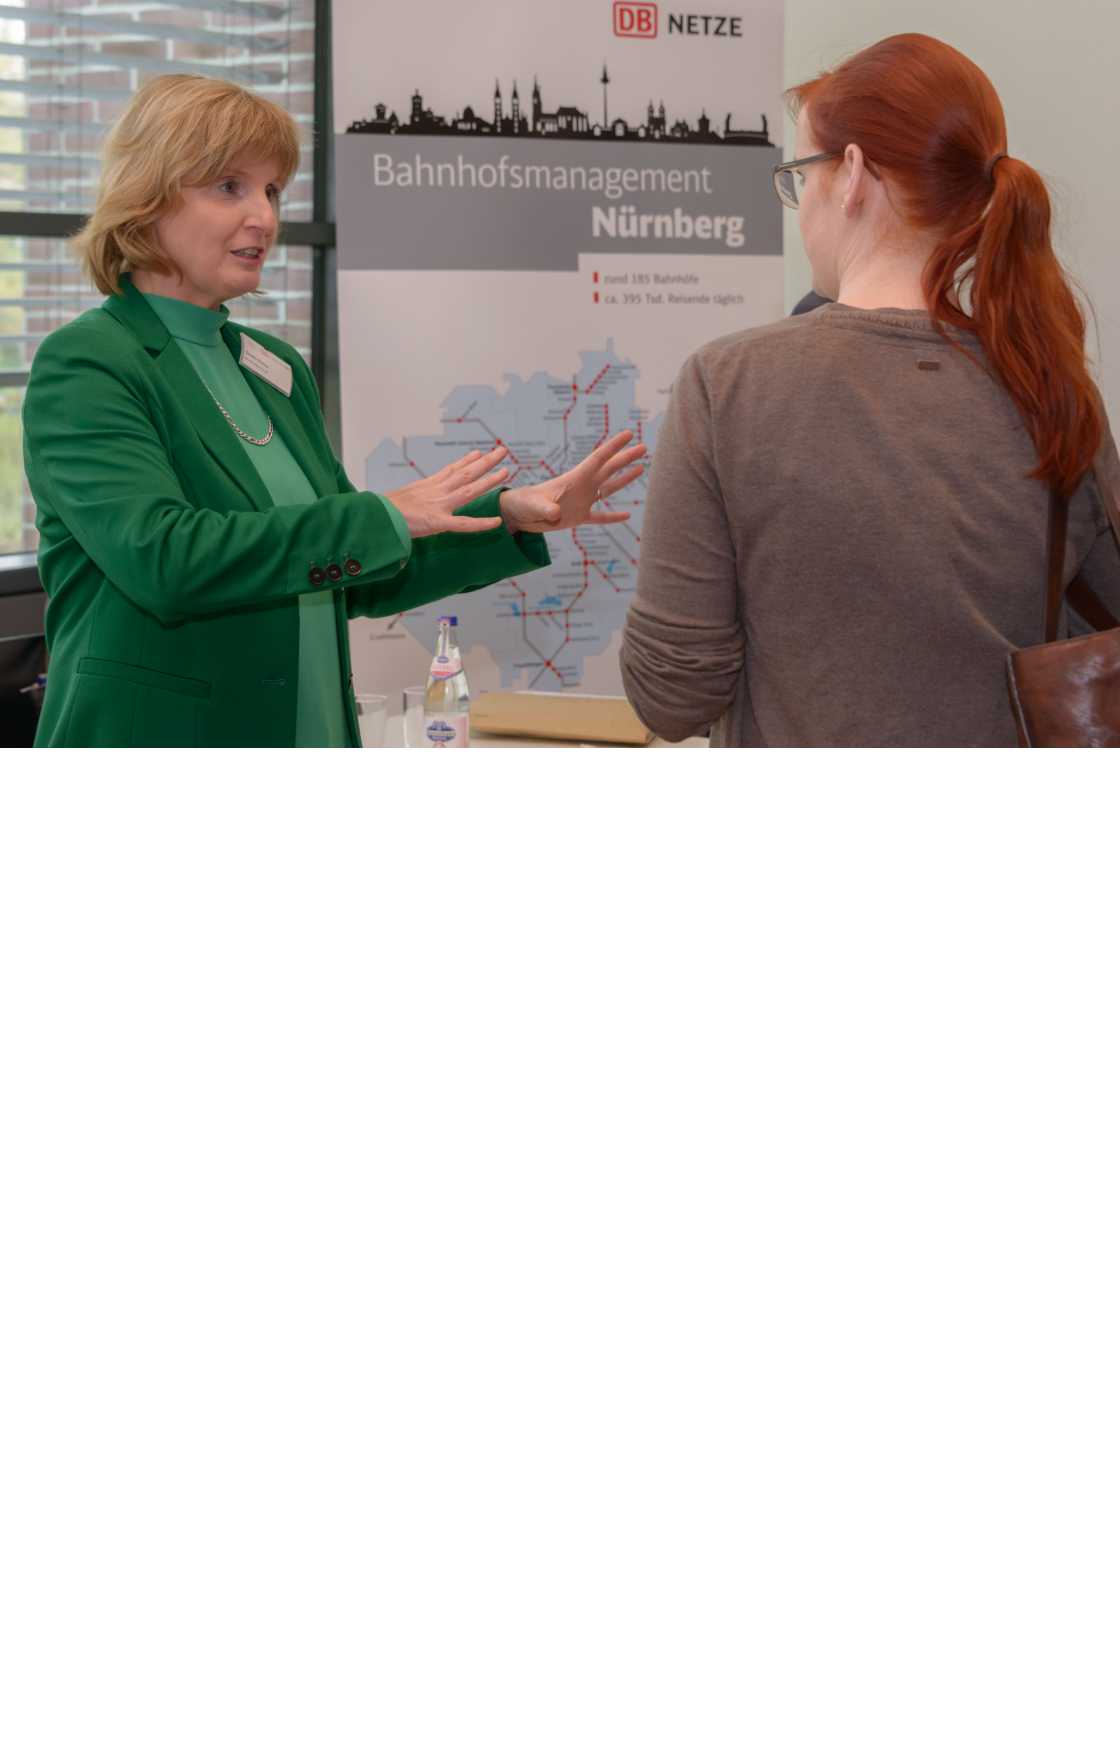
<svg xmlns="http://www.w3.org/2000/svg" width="1120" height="1759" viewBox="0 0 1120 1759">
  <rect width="100%" height="100%" fill="rgb(255,255,255)"/>
  <image x="0" y="0" width="1120" height="748" href="pic1.png"/>
</svg>
